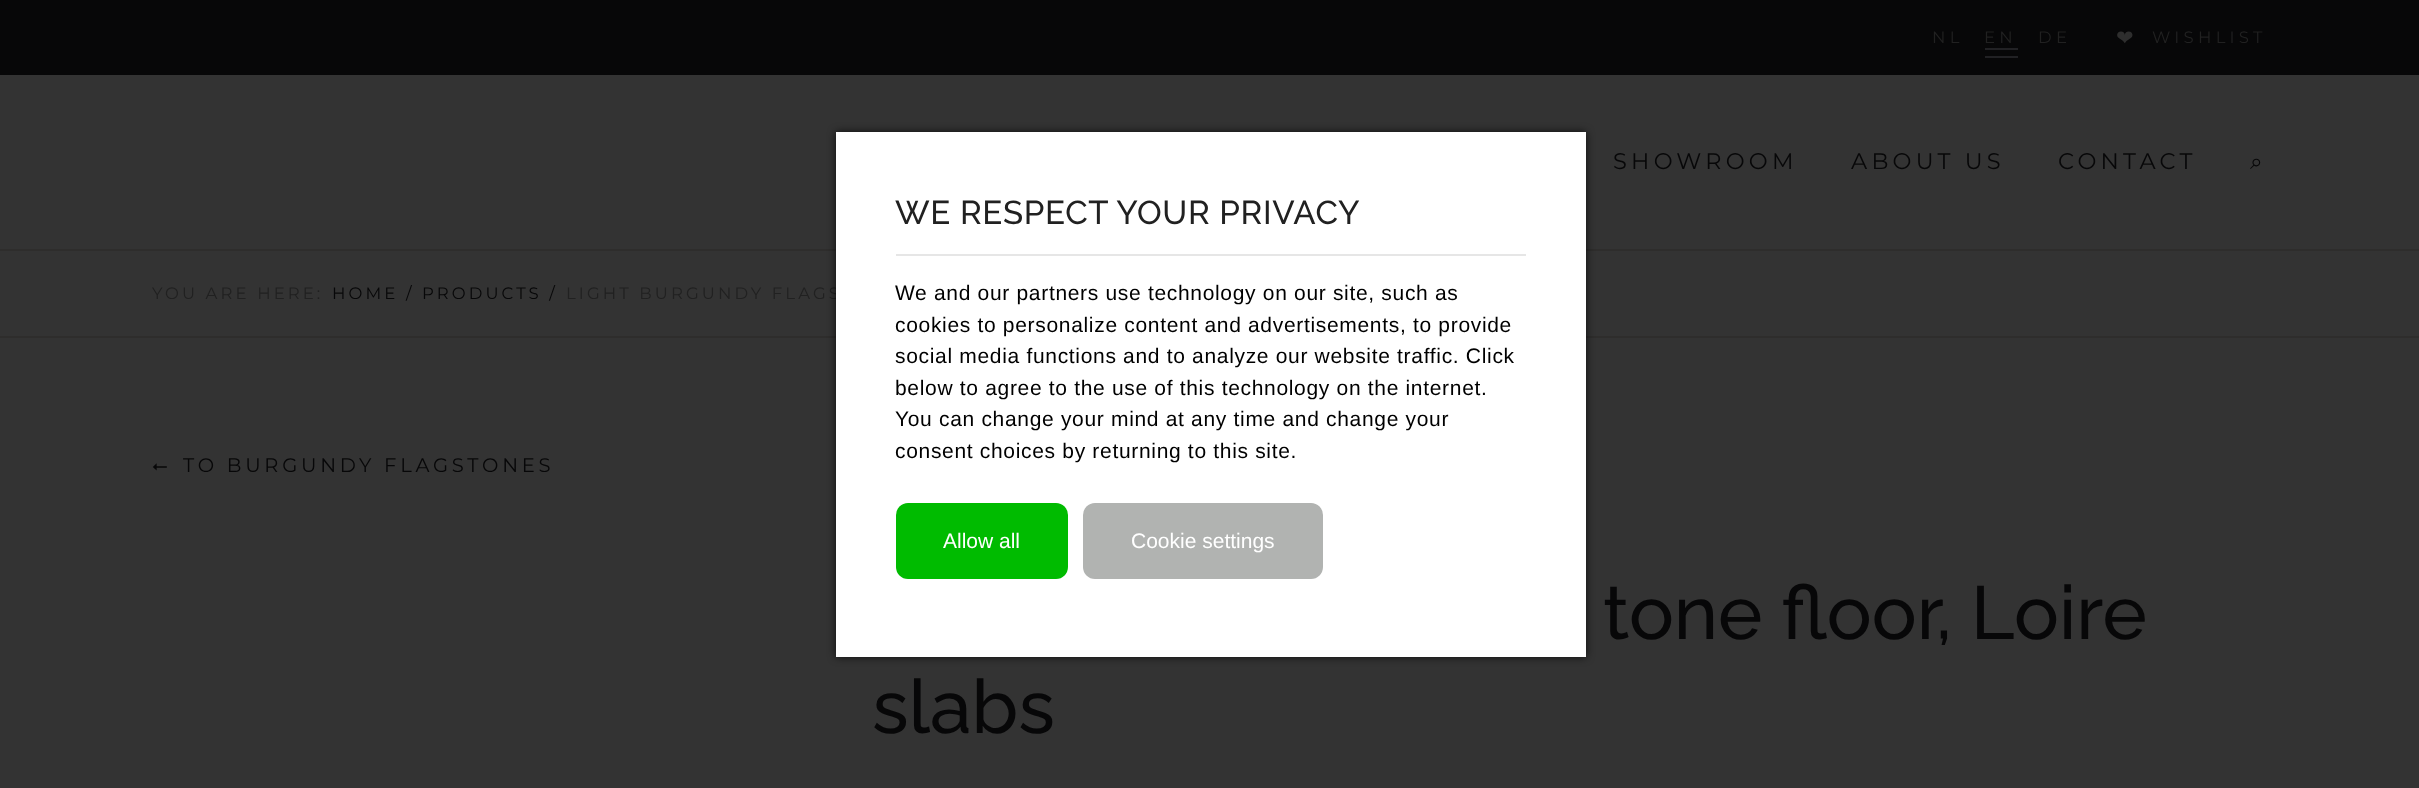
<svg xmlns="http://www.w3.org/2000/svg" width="2419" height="788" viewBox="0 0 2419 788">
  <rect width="100%" height="100%" fill="rgb(51,51,51)"/>
  <rect x="0" y="249" width="2419" height="2" fill="rgb(46,45,44)"/>
  <rect x="0" y="0" width="2419" height="75" fill="rgb(7,7,8)"/>
  <g font-family="Montserrat" font-size="16.5" letter-spacing="4.25" fill="rgb(33,33,33)">
    <text x="1932" y="43">NL</text>
    <text x="1984" y="43">EN</text>
  </g>
  <rect x="1985" y="56" width="33" height="2" fill="rgb(33,33,36)"/>
  <rect x="1985" y="48" width="33" height="2" fill="rgb(33,33,36)"/>
  <text x="2038" y="43" font-family="Montserrat" font-size="16.5" letter-spacing="4.25" fill="rgb(33,33,33)">DE</text>
  <text x="2116" y="45" font-family="DejaVu Sans" font-size="21" letter-spacing="4.25" fill="rgb(46,46,46)">❤</text>
  <text x="2152" y="43" font-family="Montserrat" font-size="16.5" letter-spacing="4.25" fill="rgb(33,33,33)">WISHLIST</text>
  <g font-family="Montserrat" font-size="22.5" letter-spacing="4.25" fill="rgb(7,7,8)">
    <text x="1613" y="169">SHOWROOM</text>
    <text x="1851" y="169">ABOUT US</text>
    <text x="2058" y="169">CONTACT</text>
  </g>
  <text x="2250" y="169" font-family="FreeSerif" font-size="22.5" letter-spacing="4.25" fill="rgb(7,7,8)">⌕</text>
  <rect x="0" y="336" width="2419" height="2" fill="rgb(46,45,44)"/>
  <text x="152" y="299" font-family="Montserrat" font-size="16.5" letter-spacing="3.1" fill="rgb(33,33,33)">YOU ARE HERE:</text>
  <text x="332" y="299" font-family="Montserrat" font-size="16.5" letter-spacing="3.1" fill="rgb(7,7,8)">HOME / PRODUCTS /</text>
  <text x="566" y="299" font-family="Montserrat" font-size="16.5" letter-spacing="3.1" fill="rgb(33,33,33)">LIGHT BURGUNDY FLAGS</text>
  <text x="152" y="472" font-family="FreeSans" font-size="19.5" letter-spacing="3.75" fill="rgb(7,7,8)">⭠</text>
  <text x="183" y="472" font-family="Montserrat" font-size="19.5" letter-spacing="3.75" fill="rgb(7,7,8)">TO BURGUNDY FLAGSTONES</text>
  <g font-family="Raleway" font-size="75" font-weight="100" fill="rgb(7,7,8)">
    <text x="1603" y="639">tone floor, Loire</text>
    <text x="872" y="733">slabs</text>
  </g>
  <rect x="836" y="132" width="750" height="525" fill="rgba(0,0,0,0.75)" filter="blur(4px)"/>
  <rect x="836" y="132" width="750" height="525" fill="rgb(255,255,255)"/>
  <text x="895" y="224" font-family="Raleway" font-size="33" font-weight="100" letter-spacing="0.68" fill="rgb(33,33,33)">WE RESPECT YOUR PRIVACY</text>
  <rect x="896" y="254" width="630" height="2" fill="rgb(230,230,230)"/>
  <g font-family="Liberation Sans" font-size="21" letter-spacing="0.68" fill="rgb(0,0,0)">
    <text>
      <tspan x="895" y="300">We and our partners use technology on our site, such as</tspan>
      <tspan x="895" y="332">cookies to personalize content and advertisements, to provide</tspan>
      <tspan x="895" y="363">social media functions and to analyze our website traffic. Click</tspan>
      <tspan x="895" y="395">below to agree to the use of this technology on the internet.</tspan>
      <tspan x="895" y="426">You can change your mind at any time and change your</tspan>
      <tspan x="895" y="458">consent choices by returning to this site.</tspan>
    </text>
  </g>
  <rect x="896" y="503" width="172" height="76" rx="12" fill="rgb(0,187,0)"/>
  <text x="943" y="548" font-family="Liberation Sans" font-size="21" fill="rgb(255,255,255)">Allow all</text>
  <rect x="1083" y="503" width="240" height="76" rx="12" fill="rgb(177,179,177)"/>
  <text x="1131" y="548" font-family="Liberation Sans" font-size="21" fill="rgb(255,255,255)">Cookie settings</text>
</svg>
